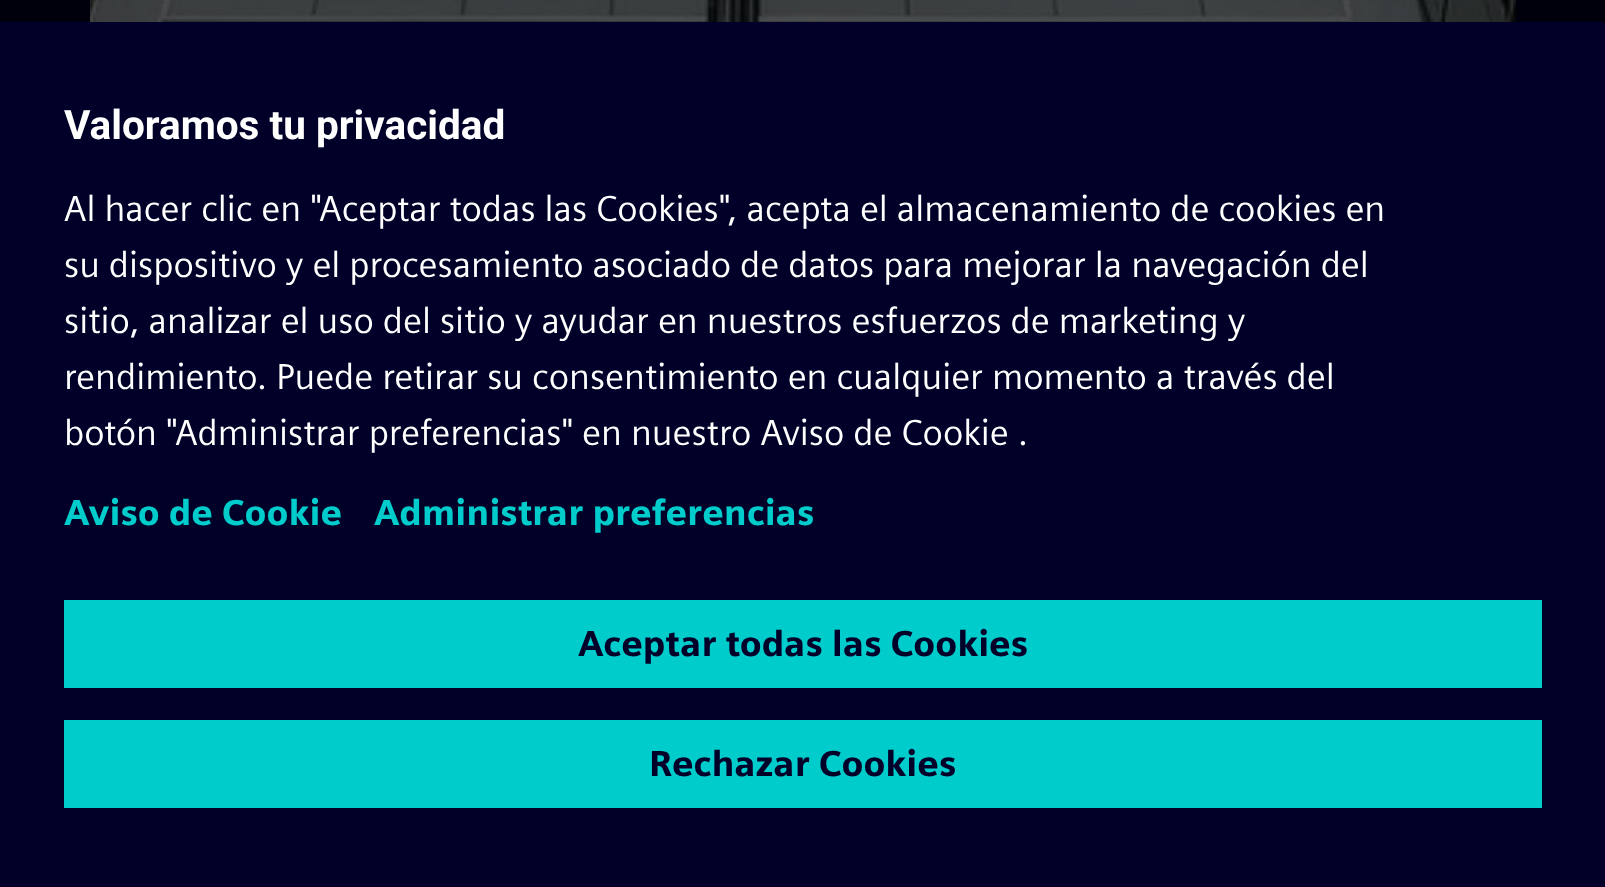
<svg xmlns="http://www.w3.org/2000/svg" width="1605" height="887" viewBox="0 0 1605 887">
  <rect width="100%" height="100%" fill="rgb(0,0,12)"/>
  <image x="90" y="0" width="1426" height="22" href="pic1.png"/>
  <rect x="0" y="22" width="1605" height="865" fill="rgb(0,0,40)"/>
  <text x="64" y="139" font-family="Roboto" font-size="40.5" font-weight="bold" fill="rgb(255,255,255)">Valoramos tu privacidad</text>
  <g font-family="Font" font-size="36" fill="rgb(255,255,255)">
    <text>
      <tspan x="64" y="221">Al hacer clic en "Aceptar todas las Cookies", acepta el almacenamiento de cookies en</tspan>
      <tspan x="64" y="277">su dispositivo y el procesamiento asociado de datos para mejorar la navegación del</tspan>
      <tspan x="64" y="333">sitio, analizar el uso del sitio y ayudar en nuestros esfuerzos de marketing y</tspan>
      <tspan x="64" y="389">rendimiento. Puede retirar su consentimiento en cualquier momento a través del</tspan>
      <tspan x="64" y="445">botón "Administrar preferencias" en nuestro Aviso de Cookie .</tspan>
    </text>
  </g>
  <g font-family="Font" font-size="36" font-weight="bold" fill="rgb(0,204,204)">
    <text x="64" y="525">Aviso de Cookie</text>
    <text x="374" y="525">Administrar preferencias</text>
  </g>
  <rect x="64" y="600" width="1478" height="88" fill="rgb(0,204,204)"/>
  <text x="578" y="656" font-family="Font" font-size="36" font-weight="bold" fill="rgb(0,0,40)">Aceptar todas las Cookies</text>
  <rect x="64" y="720" width="1478" height="88" fill="rgb(0,204,204)"/>
  <text x="649" y="776" font-family="Font" font-size="36" font-weight="bold" fill="rgb(0,0,40)">Rechazar Cookies</text>
</svg>
